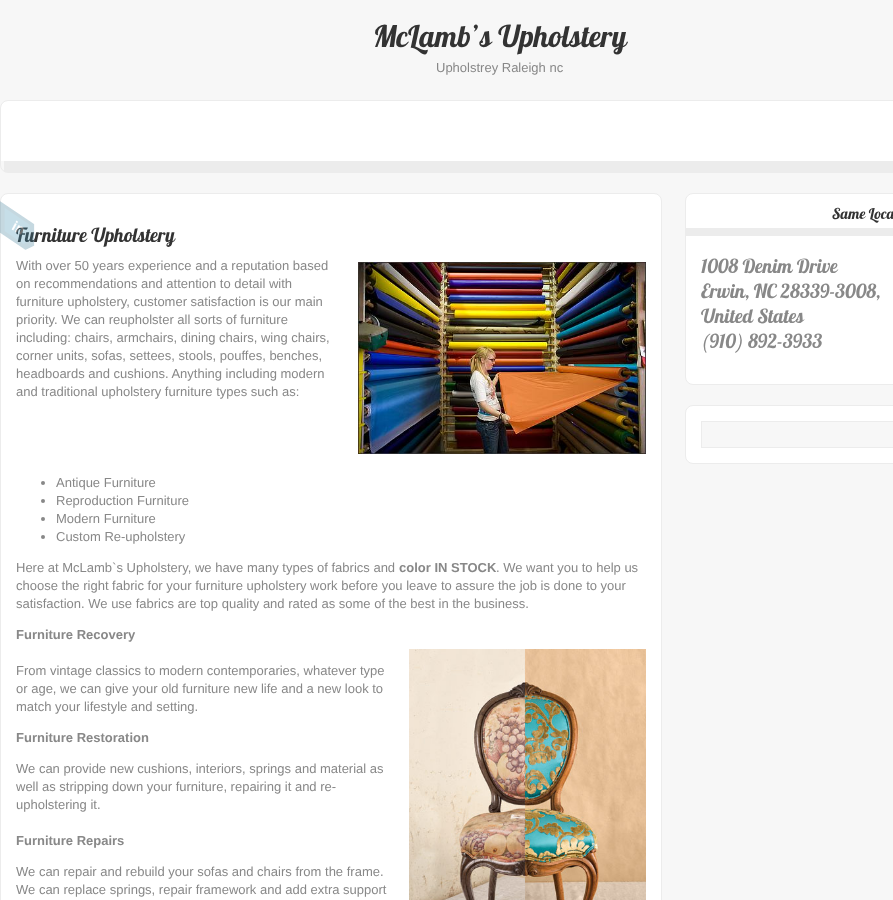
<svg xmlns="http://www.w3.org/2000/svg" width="893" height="900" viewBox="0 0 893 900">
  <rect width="100%" height="100%" fill="rgb(247,247,247)"/>
  <text x="373" y="47" font-family="'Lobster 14'" font-size="30" fill="rgb(51,51,51)">McLamb’s Upholstery</text>
  <text x="436" y="72" font-family="Liberation Sans" font-size="13" fill="rgb(136,136,136)">Upholstrey Raleigh nc</text>
  <path d="M8 101H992C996 101 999 104 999 108V161H1V108C1 104 4 101 8 101Z" fill="rgb(255,255,255)"/>
  <rect x="0.5" y="100.5" width="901" height="72" rx="7.5" fill="none" stroke="rgb(236,236,236)"/>
  <rect x="4" y="161" width="889" height="11" fill="rgb(236,236,236)"/>
  <rect x="0.5" y="193.5" width="661" height="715" rx="7.5" fill="rgb(255,255,255)" stroke="rgb(236,236,236)"/>
  <text x="16" y="242" font-family="'Lobster 14'" font-size="19.5" fill="rgb(51,51,51)">Furniture Upholstery</text>
  <text x="16" y="270" font-family="Liberation Sans" font-size="13" fill="rgb(136,136,136)">With over 50 years experience and a reputation based</text>
  <image x="358" y="262" width="288" height="192" href="pic1.png"/>
  <g font-family="Liberation Sans" font-size="13" fill="rgb(136,136,136)">
    <text>
      <tspan x="16" y="288">on recommendations and attention to detail with</tspan>
      <tspan x="16" y="306">furniture upholstery, customer satisfaction is our main</tspan>
      <tspan x="16" y="324">priority. We can reupholster all sorts of furniture</tspan>
      <tspan x="16" y="342">including: chairs, armchairs, dining chairs, wing chairs,</tspan>
      <tspan x="16" y="360">corner units, sofas, settees, stools, pouffes, benches,</tspan>
      <tspan x="16" y="378">headboards and cushions. Anything including modern</tspan>
      <tspan x="16" y="396">and traditional upholstery furniture types such as:</tspan>
    </text>
  </g>
  <circle cx="43" cy="483" r="2" fill="rgb(136,136,136)"/>
  <text x="56" y="487" font-family="Liberation Sans" font-size="13" fill="rgb(136,136,136)">Antique Furniture</text>
  <circle cx="43" cy="501" r="2" fill="rgb(136,136,136)"/>
  <text x="56" y="505" font-family="Liberation Sans" font-size="13" fill="rgb(136,136,136)">Reproduction Furniture</text>
  <circle cx="43" cy="519" r="2" fill="rgb(136,136,136)"/>
  <text x="56" y="523" font-family="Liberation Sans" font-size="13" fill="rgb(136,136,136)">Modern Furniture</text>
  <circle cx="43" cy="537" r="2" fill="rgb(136,136,136)"/>
  <g font-family="Liberation Sans" font-size="13" fill="rgb(136,136,136)">
    <text x="56" y="541">Custom Re-upholstery</text>
    <text x="16" y="572">Here at McLamb`s Upholstery, we have many types of fabrics and</text>
  </g>
  <text x="399" y="572" font-family="Liberation Sans" font-size="13" font-weight="bold" fill="rgb(136,136,136)">color IN STOCK</text>
  <g font-family="Liberation Sans" font-size="13" fill="rgb(136,136,136)">
    <text x="496" y="572">. We want you to help us</text>
    <text>
      <tspan x="16" y="590">choose the right fabric for your furniture upholstery work before you leave to assure the job is done to your</tspan>
      <tspan x="16" y="608">satisfaction. We use fabrics are top quality and rated as some of the best in the business.</tspan>
    </text>
  </g>
  <text x="16" y="639" font-family="Liberation Sans" font-size="13" font-weight="bold" fill="rgb(136,136,136)">Furniture Recovery</text>
  <text x="16" y="675" font-family="Liberation Sans" font-size="13" fill="rgb(136,136,136)">From vintage classics to modern contemporaries, whatever type</text>
  <image x="409" y="649" width="237" height="251" href="pic2.png"/>
  <g font-family="Liberation Sans" font-size="13" fill="rgb(136,136,136)">
    <text>
      <tspan x="16" y="693">or age, we can give your old furniture new life and a new look to</tspan>
      <tspan x="16" y="711">match your lifestyle and setting.</tspan>
    </text>
  </g>
  <text x="16" y="742" font-family="Liberation Sans" font-size="13" font-weight="bold" fill="rgb(136,136,136)">Furniture Restoration</text>
  <g font-family="Liberation Sans" font-size="13" fill="rgb(136,136,136)">
    <text>
      <tspan x="16" y="773">We can provide new cushions, interiors, springs and material as</tspan>
      <tspan x="16" y="791">well as stripping down your furniture, repairing it and re-</tspan>
      <tspan x="16" y="809">upholstering it.</tspan>
    </text>
  </g>
  <text x="16" y="845" font-family="Liberation Sans" font-size="13" font-weight="bold" fill="rgb(136,136,136)">Furniture Repairs</text>
  <g font-family="Liberation Sans" font-size="13" fill="rgb(136,136,136)">
    <text>
      <tspan x="16" y="876">We can repair and rebuild your sofas and chairs from the frame.</tspan>
      <tspan x="16" y="894">We can replace springs, repair framework and add extra support</tspan>
    </text>
  </g>
  <rect x="685.5" y="193.5" width="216" height="191" rx="7.5" fill="rgb(255,255,255)" stroke="rgb(236,236,236)"/>
  <rect x="686" y="228" width="207" height="8" fill="rgb(236,236,236)"/>
  <text x="832" y="219" font-family="'Lobster 14'" font-size="15" fill="rgb(51,51,51)">Same Loca</text>
  <g font-family="'Lobster 14'" font-size="19.5" fill="rgb(136,136,136)">
    <text>
      <tspan x="701" y="273">1008 Denim Drive</tspan>
      <tspan x="701" y="298">Erwin, NC 28339-3008,</tspan>
      <tspan x="701" y="323">United States</tspan>
      <tspan x="701" y="348">(910) 892-3933</tspan>
    </text>
  </g>
  <rect x="685.5" y="405.5" width="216" height="58" rx="7.5" fill="rgb(255,255,255)" stroke="rgb(236,236,236)"/>
  <rect x="701.5" y="421.5" width="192" height="26" fill="rgb(247,247,247)" stroke="rgb(236,236,236)"/>
  <image x="0" y="201" width="35" height="49" href="pic3.png"/>
</svg>
